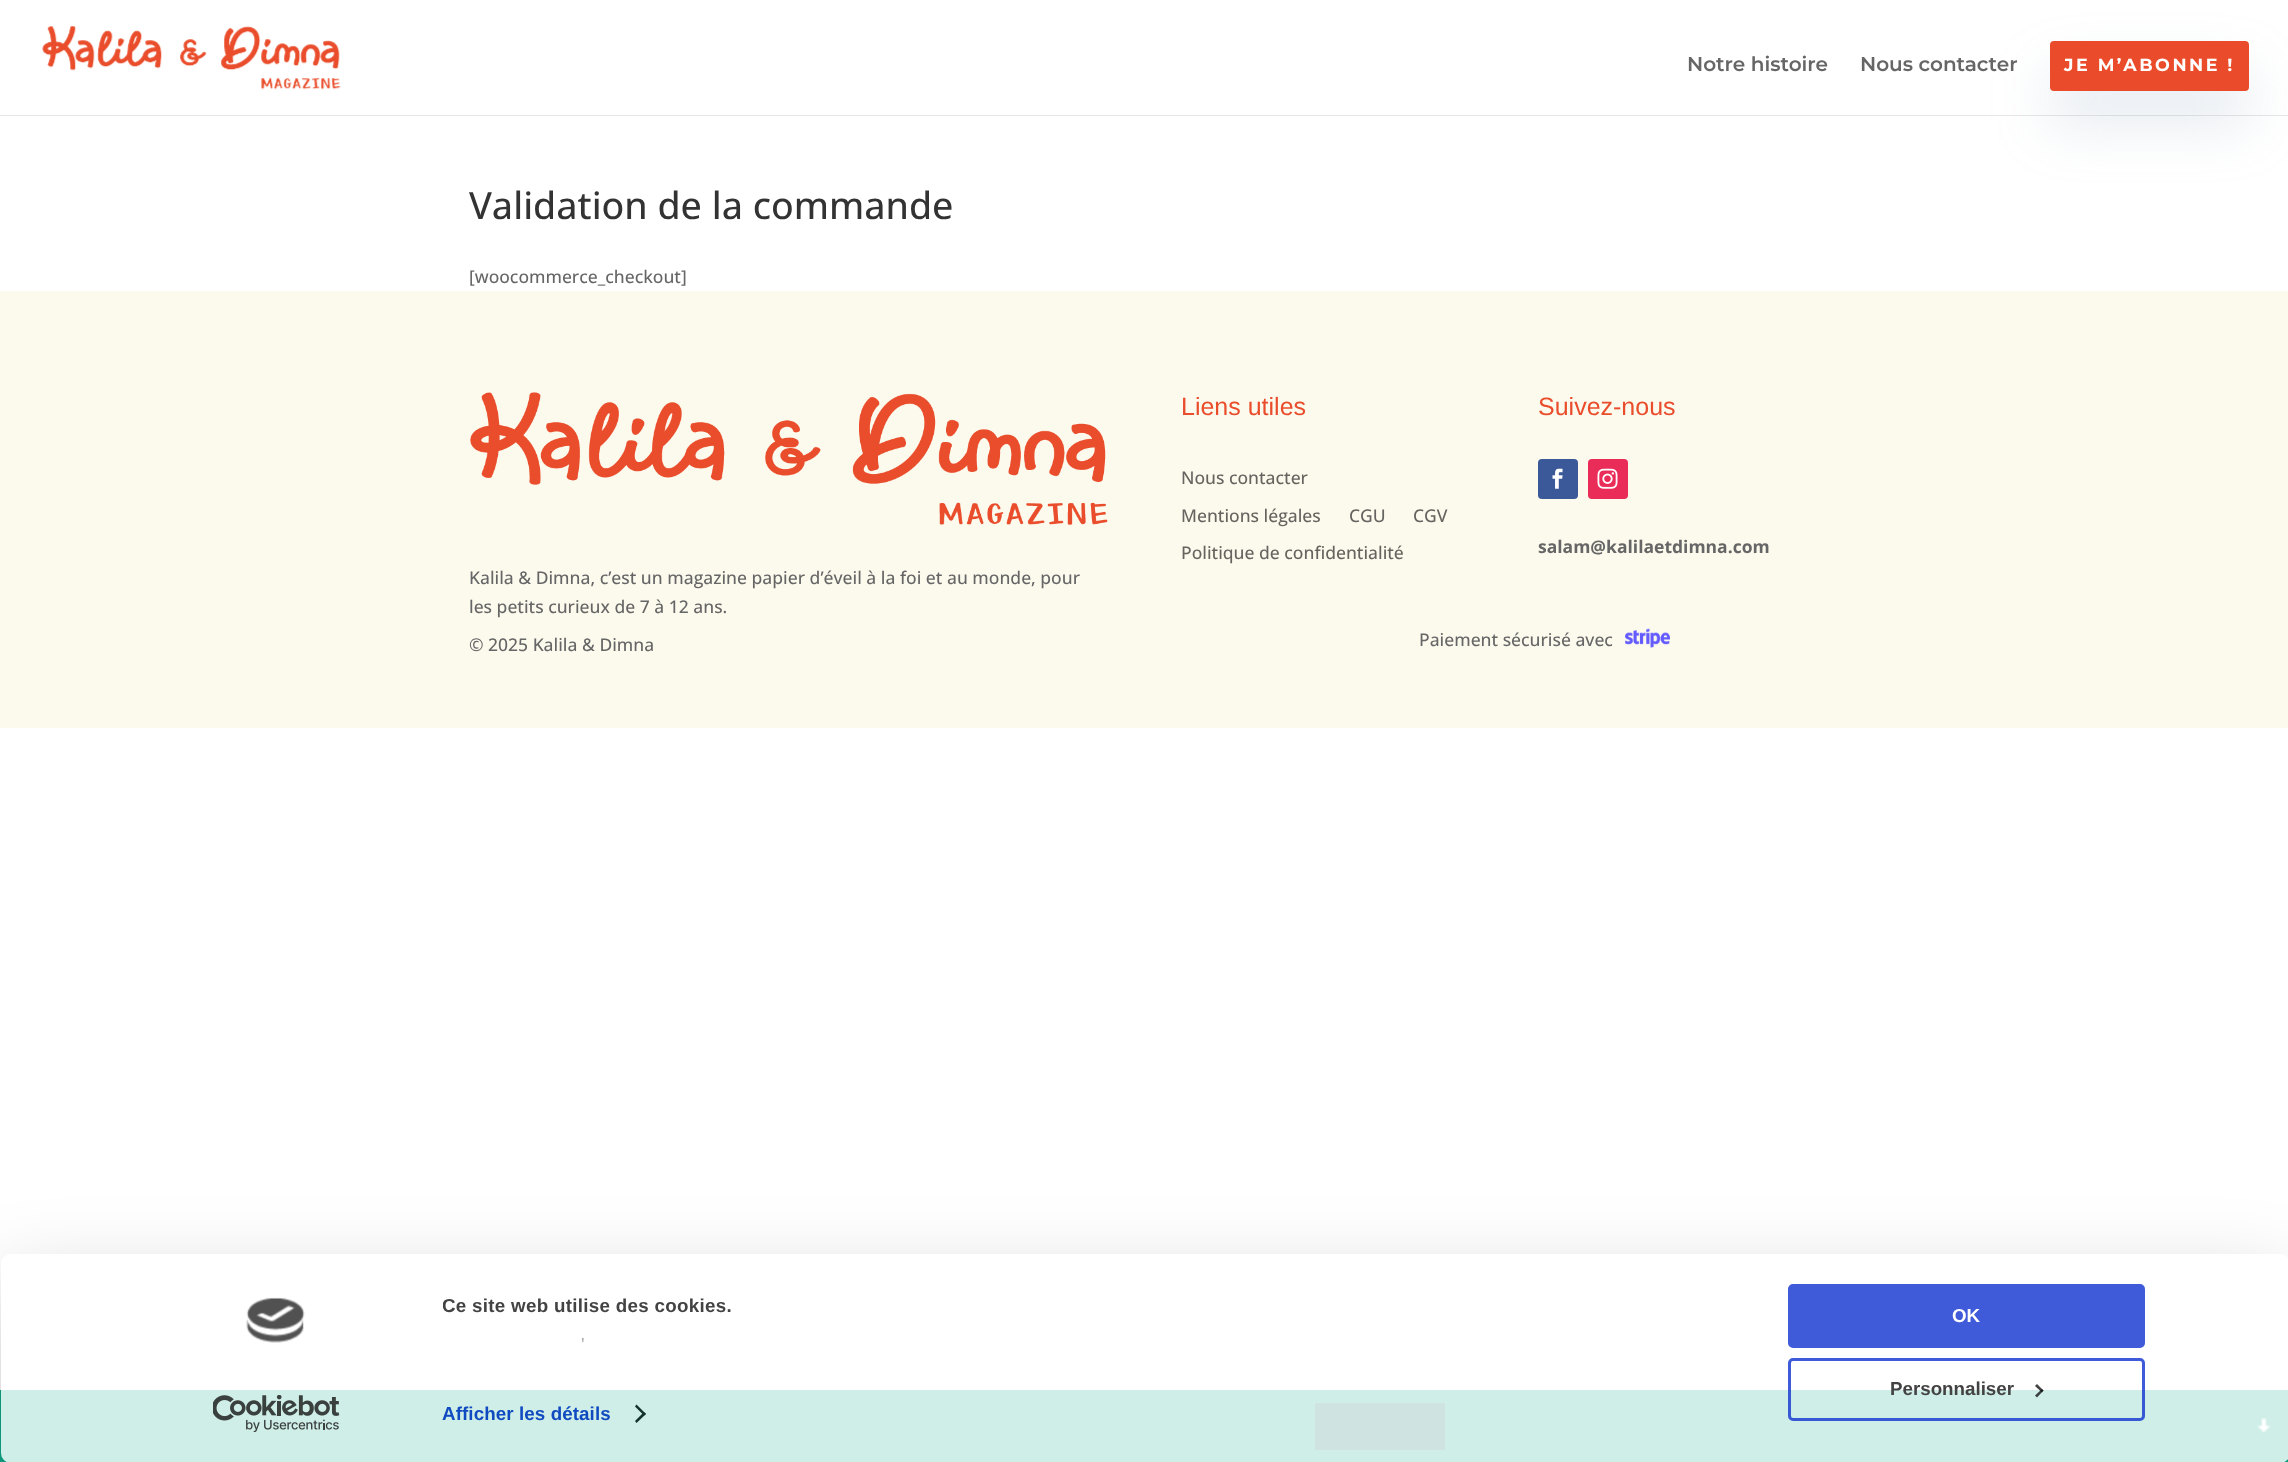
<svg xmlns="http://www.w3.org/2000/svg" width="2288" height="1462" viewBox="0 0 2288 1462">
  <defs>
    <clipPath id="clip1"><path d="M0 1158H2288V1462H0ZM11 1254H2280C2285.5 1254 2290 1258.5 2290 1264V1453C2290 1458.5 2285.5 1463 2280 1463H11C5.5 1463 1 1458.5 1 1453V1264C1 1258.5 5.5 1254 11 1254Z" clip-rule="evenodd"/></clipPath>
    <clipPath id="clip2"><rect x="443" y="1291" width="1310" height="69"/></clipPath>
    <linearGradient id="g1" gradientUnits="userSpaceOnUse" x1="1084" y1="1367" x2="1084" y2="1325"><stop offset="0" stop-color="rgb(255,255,255)"/><stop offset="0.5" stop-color="rgb(255,255,255)" stop-opacity="0.8"/><stop offset="1" stop-color="rgb(255,255,255)" stop-opacity="0"/></linearGradient>
  </defs>
  <rect width="100%" height="100%" fill="rgb(255,255,255)"/>
  <path d="M0 115V116H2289V1V115Z" fill="rgb(230,230,230)"/>
  <image x="42" y="26" width="299" height="64" href="pic1.png"/>
  <g font-family="Montserrat" font-size="20" font-weight="100" fill="rgb(102,102,102)">
    <text x="1687" y="71">Notre histoire</text>
    <text x="1860" y="71">Nous contacter</text>
  </g>
  <rect x="2050" y="73" width="199" height="50" rx="4" fill="rgba(148,166,191,0.25)" filter="blur(28px)"/>
  <rect x="2052.5" y="43.5" width="194" height="45" rx="1.5" fill="rgb(234,76,43)" stroke="rgb(234,76,43)" stroke-width="5"/>
  <text x="2064" y="71" font-family="Montserrat" font-size="17.5" font-weight="bold" letter-spacing="2.5" fill="rgb(255,255,255)">JE M’ABONNE !</text>
  <text x="469" y="219" font-family="Open Sans" font-size="37.5" font-weight="500" fill="rgb(51,51,51)">Validation de la commande</text>
  <text x="469" y="283" font-family="Open Sans" font-size="17.5" font-weight="500" fill="rgb(102,102,102)">[woocommerce_checkout]</text>
  <rect x="0" y="291" width="2288" height="437" fill="rgb(252,249,237)"/>
  <text x="1181" y="415" font-family="Liberation Sans" font-size="25" fill="rgb(233,77,43)">Liens utiles</text>
  <g font-family="Open Sans" font-size="17.5" font-weight="500" fill="rgb(101,100,95)">
    <text x="1181" y="484">Nous contacter</text>
    <text x="1181" y="522">Mentions légales</text>
    <text x="1349" y="522">CGU</text>
    <text x="1413" y="522">CGV</text>
    <text x="1181" y="559">Politique de confidentialité</text>
  </g>
  <text x="1538" y="415" font-family="Liberation Sans" font-size="25" fill="rgb(233,77,43)">Suivez-nous</text>
  <rect x="1538" y="459" width="40" height="40" rx="4" fill="rgb(59,89,152)"/>
  <image x="1552" y="468" width="11" height="21" href="pic2.png"/>
  <rect x="1588" y="459" width="40" height="40" rx="4" fill="rgb(234,44,89)"/>
  <image x="1597" y="468" width="21" height="21" href="pic3.png"/>
  <text x="1538" y="553" font-family="Open Sans" font-size="17.5" font-weight="bold" fill="rgb(102,102,102)">salam@kalilaetdimna.com</text>
  <image x="470" y="392" width="638" height="133" href="pic4.png"/>
  <g font-family="Open Sans" font-size="17.5" font-weight="500" fill="rgb(102,102,102)">
    <text>
      <tspan x="469" y="584">Kalila &amp; Dimna, c’est un magazine papier d’éveil à la foi et au monde, pour</tspan>
      <tspan x="469" y="613">les petits curieux de 7 à 12 ans.</tspan>
    </text>
    <text x="469" y="651">© 2025 Kalila &amp; Dimna</text>
    <text x="1419" y="646">Paiement sécurisé avec</text>
  </g>
  <image x="1625" y="628" width="45" height="20" href="pic5.png"/>
  <rect x="0" y="1390" width="2288" height="72" fill="rgb(18,168,137)"/>
  <rect x="1315" y="1403" width="130" height="47" fill="rgb(16,122,100)"/>
  <image x="2255" y="1414" width="16" height="22" href="pic8.png"/>
  <g clip-path="url(#clip1)">
    <rect x="1" y="1291" width="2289" height="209" rx="10" fill="rgba(0,0,0,0.24)" filter="blur(44px)"/>
  </g>
  <rect x="1" y="1254" width="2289" height="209" rx="10" fill="rgba(255,255,255,0.8)"/>
  <image x="246" y="1297" width="59" height="46" href="pic6.png"/>
  <image x="213" y="1395" width="127" height="38" href="pic7.png"/>
  <g clip-path="url(#clip2)">
    <text x="442" y="1312" font-family="Liberation Sans" font-size="18.75" font-weight="bold" letter-spacing="0.3" fill="rgb(67,67,67)">Ce site web utilise des cookies.</text>
  </g>
  <text x="581" y="1351" font-family="Liberation Sans" font-size="18.75" letter-spacing="1" fill="rgb(67,67,67)">'</text>
  <rect x="582" y="1338" width="2" height="5" fill="url(#g1)"/>
  <text x="442" y="1420" font-family="Liberation Sans" font-size="18.75" font-weight="bold" letter-spacing="0.1" fill="rgb(16,74,193)">Afficher les détails</text>
  <path d="M636.5 1404.5L646 1414L644 1415.5L635 1406.5Z" fill="rgb(20,50,43)"/>
  <path d="M644 1412L646 1414L636.5 1423L635 1421Z" fill="rgb(20,50,43)"/>
  <rect x="1789.5" y="1285.5" width="354" height="61" rx="3.5" fill="rgb(64,91,217)" stroke="rgb(64,91,217)" stroke-width="3"/>
  <text x="1952" y="1322" font-family="Liberation Sans" font-size="18.75" font-weight="bold" fill="rgb(255,255,255)">OK</text>
  <rect x="1789.5" y="1359.5" width="354" height="60" rx="3.5" fill="none" stroke="rgba(16,50,207,0.8)" stroke-width="3"/>
  <text x="1890" y="1395" font-family="Liberation Sans" font-size="18.75" font-weight="bold" fill="rgb(67,67,67)">Personnaliser</text>
  <path d="M2037 1384L2043.5 1390.5L2042 1392.5L2035 1386Z" fill="rgba(20,20,20,0.8)"/>
  <path d="M2042 1389L2043.5 1390.5L2037 1397.5L2035 1395.5Z" fill="rgba(20,20,20,0.8)"/>
</svg>
